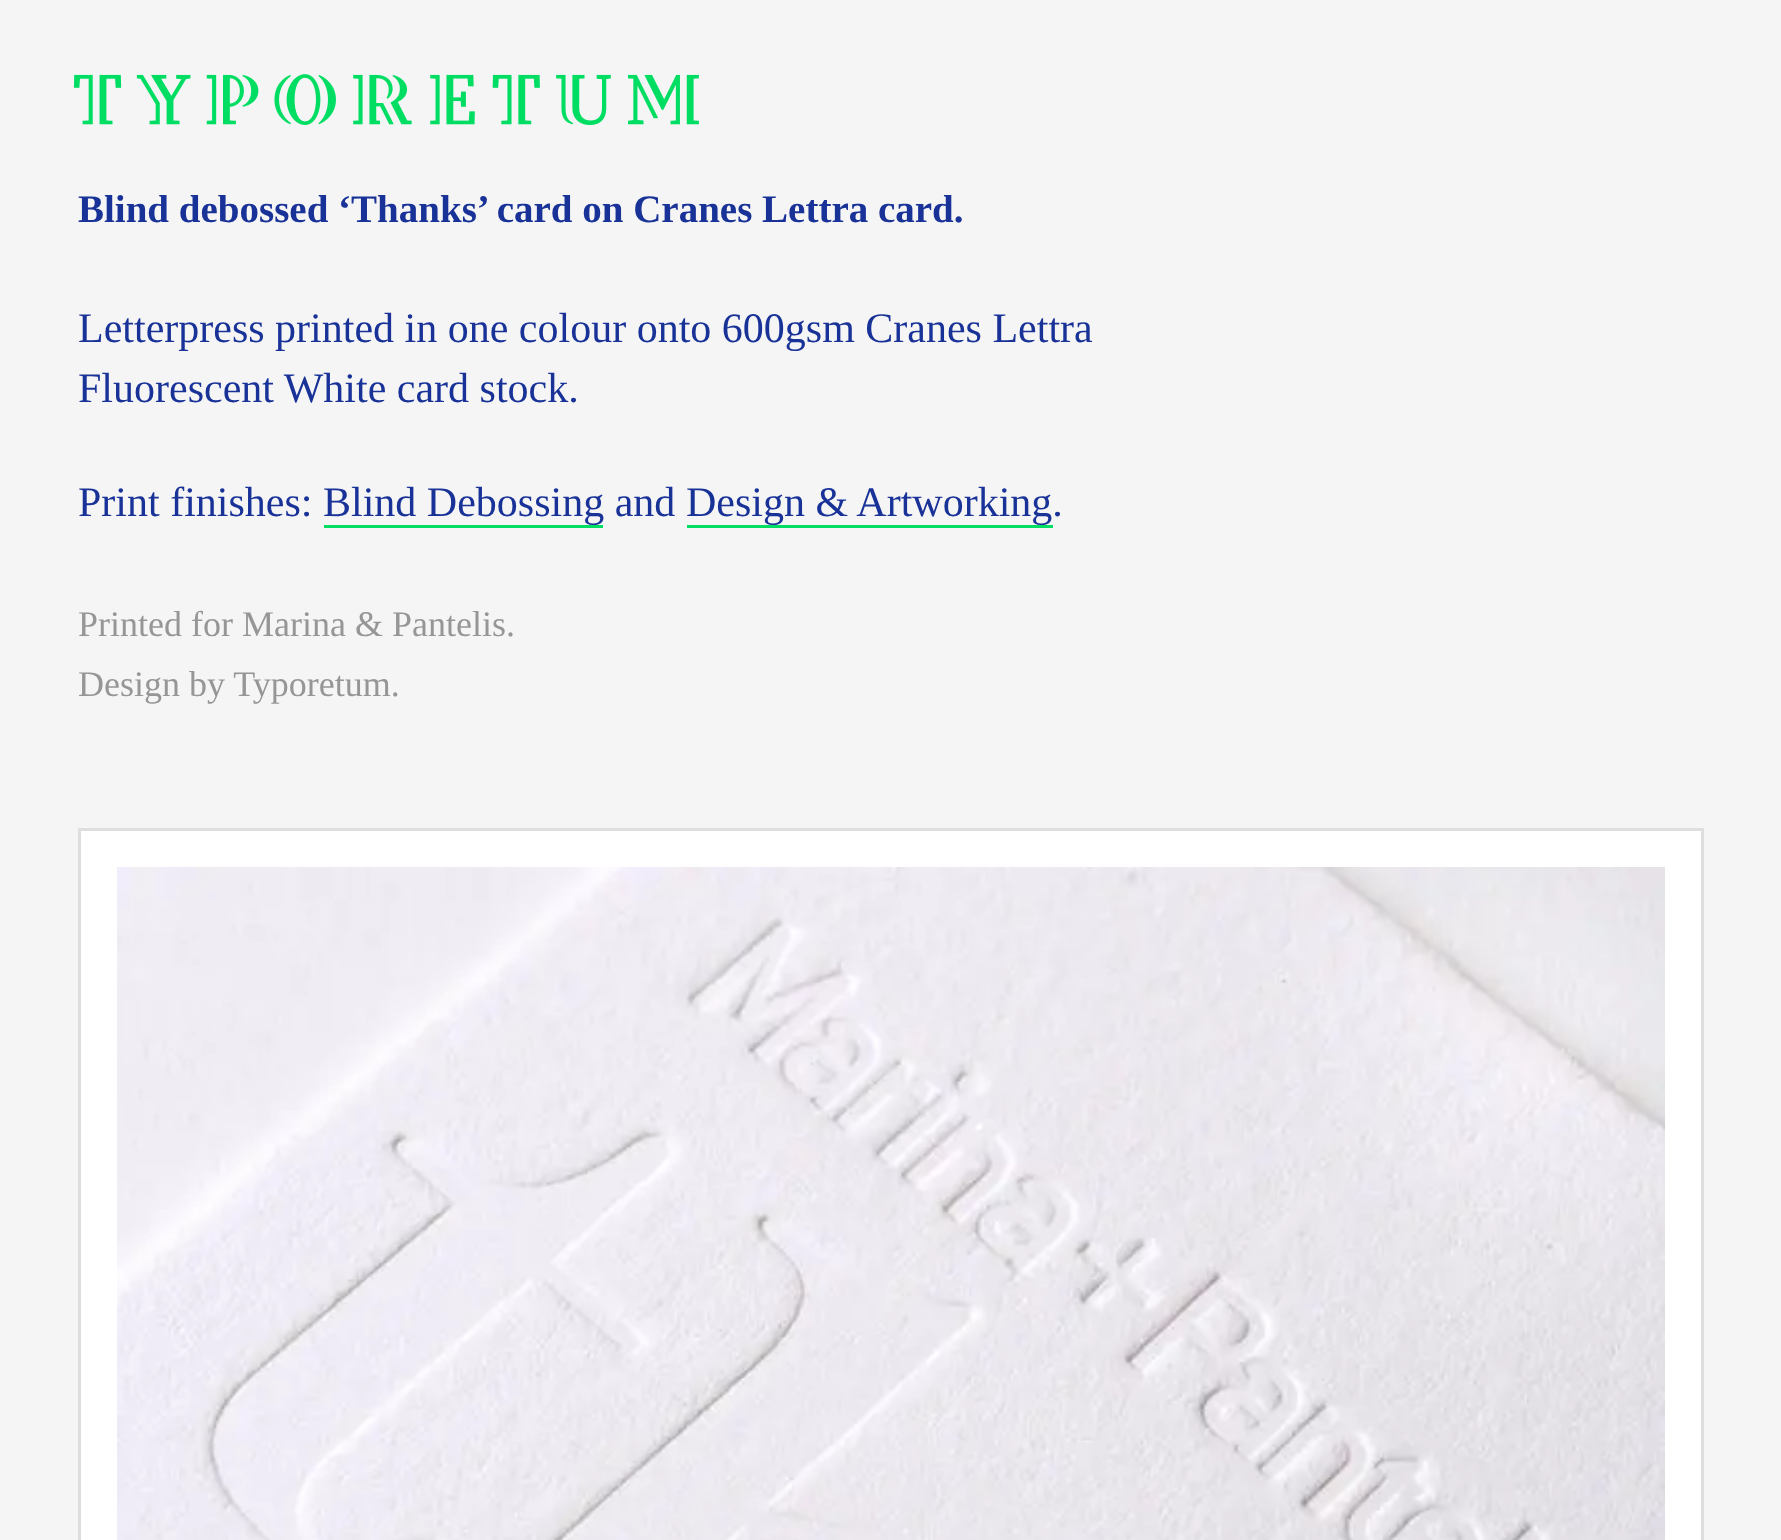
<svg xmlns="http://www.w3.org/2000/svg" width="1781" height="1540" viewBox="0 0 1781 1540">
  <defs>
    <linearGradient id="g1" gradientUnits="userSpaceOnUse" x1="891" y1="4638" x2="891" y2="0"><stop offset="0.06" stop-color="rgb(217,248,217)"/><stop offset="0.32" stop-color="rgb(245,245,245)"/></linearGradient>
  </defs>
  <rect width="100%" height="100%" fill="rgb(255,255,255)"/>
  <rect x="0" y="0" width="1781" height="1540" fill="url(#g1)"/>
  <image x="73" y="74" width="626" height="51" href="pic1.png"/>
  <text x="78" y="222" font-family="Liberation Serif" font-size="39" font-weight="bold" fill="rgb(24,50,152)">Blind debossed ‘Thanks’ card on Cranes Lettra card.</text>
  <g font-family="Liberation Serif" font-size="42" fill="rgb(24,50,152)">
    <text>
      <tspan x="78" y="342">Letterpress printed in one colour onto 600gsm Cranes Lettra</tspan>
      <tspan x="78" y="402">Fluorescent White card stock.</tspan>
    </text>
    <text x="78" y="516">Print finishes:</text>
  </g>
  <rect x="324" y="525" width="279" height="3" fill="rgb(0,221,99)"/>
  <text x="323" y="516" font-family="Liberation Serif" font-size="42" fill="rgb(24,50,152)">Blind Debossing and</text>
  <rect x="687" y="525" width="366" height="3" fill="rgb(0,221,99)"/>
  <text x="686" y="516" font-family="Liberation Serif" font-size="42" fill="rgb(24,50,152)">Design &amp; Artworking.</text>
  <g font-family="Liberation Serif" font-size="36" fill="rgb(150,150,150)">
    <text>
      <tspan x="78" y="636">Printed for Marina &amp; Pantelis.</tspan>
      <tspan x="78" y="696">Design by Typoretum.</tspan>
    </text>
  </g>
  <rect x="79.5" y="829.5" width="1623" height="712" fill="rgb(255,255,255)" stroke="rgb(222,222,222)" stroke-width="3"/>
  <image x="117" y="867" width="1548" height="673" href="pic2.png"/>
</svg>
